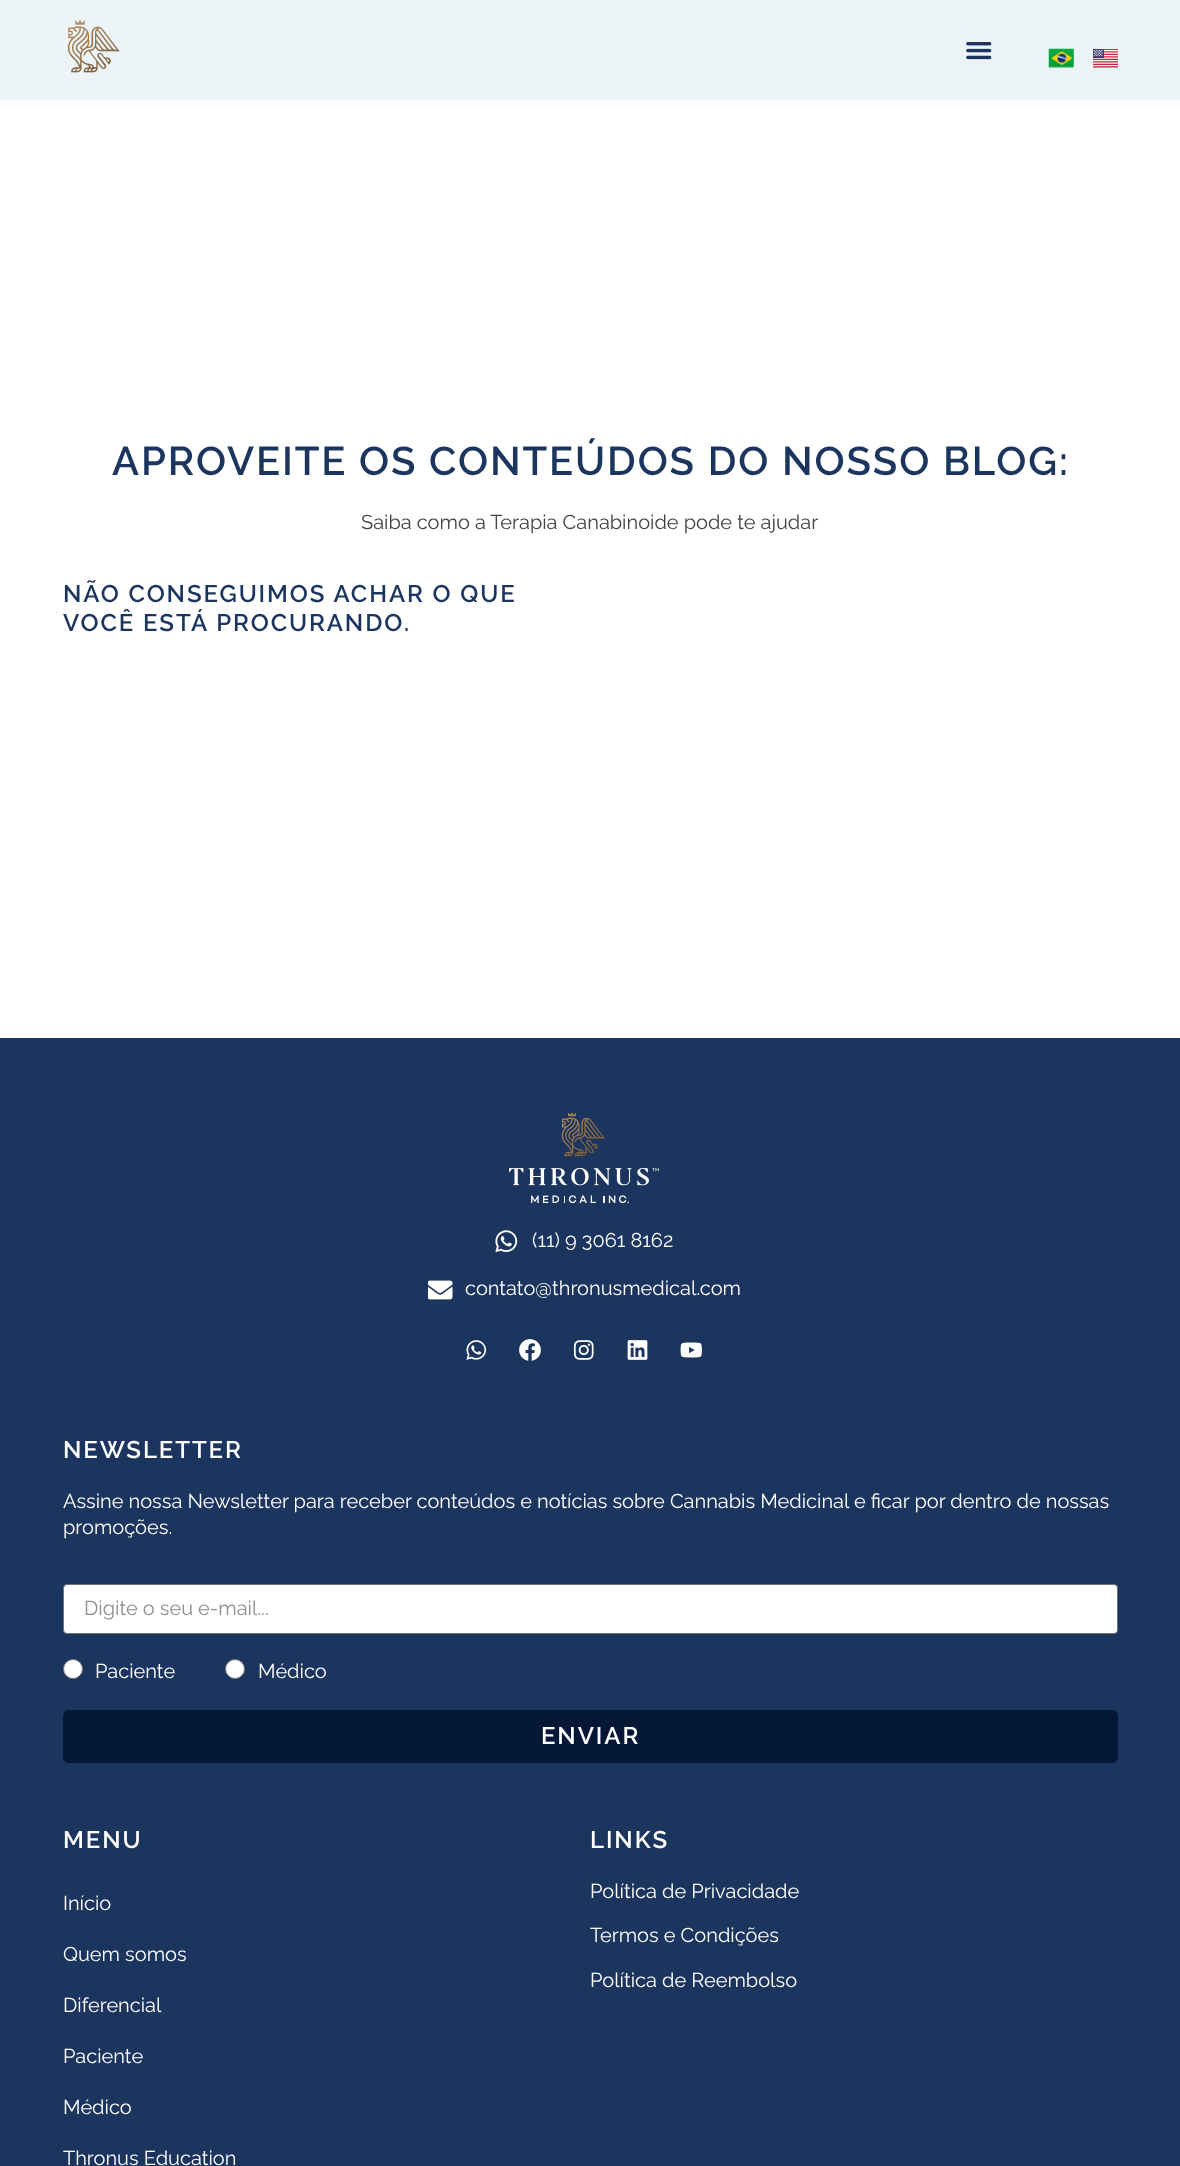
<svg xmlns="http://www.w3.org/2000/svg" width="1180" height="2166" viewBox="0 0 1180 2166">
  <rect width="100%" height="100%" fill="rgb(255,255,255)"/>
  <rect x="0" y="0" width="1180" height="100" fill="rgb(236,244,248)"/>
  <image x="67" y="20" width="53" height="53" href="pic1.png"/>
  <image x="966" y="42" width="26" height="18" href="pic2.png"/>
  <image x="1048" y="48" width="26" height="20" href="pic3.png"/>
  <image x="1093" y="49" width="25" height="19" href="pic4.png"/>
  <text x="112" y="475" font-family="Raleway" font-size="40" font-weight="600" letter-spacing="1.9" fill="rgb(28,53,94)">APROVEITE OS CONTEÚDOS DO NOSSO BLOG:</text>
  <text x="361" y="529" font-family="Raleway" font-size="20" fill="rgb(66,66,66)">Saiba como a Terapia Canabinoide pode te ajudar</text>
  <g font-family="Raleway" font-size="24" font-weight="600" letter-spacing="1.9" fill="rgb(28,53,94)">
    <text>
      <tspan x="63" y="602">NÃO CONSEGUIMOS ACHAR O QUE</tspan>
      <tspan x="63" y="631">VOCÊ ESTÁ PROCURANDO.</tspan>
    </text>
  </g>
  <rect x="0" y="1038" width="1180" height="1128" fill="rgb(28,53,94)"/>
  <image x="509" y="1113" width="150" height="91" href="pic5.png"/>
  <image x="495" y="1230" width="23" height="23" href="pic6.png"/>
  <text x="532" y="1247" font-family="Raleway" font-size="20" fill="rgb(255,255,255)">(11) 9 3061 8162</text>
  <image x="428" y="1280" width="25" height="20" href="pic7.png"/>
  <text x="465" y="1295" font-family="Raleway" font-size="20" fill="rgb(255,255,255)">contato@thronusmedical.com</text>
  <image x="466" y="1340" width="21" height="20" href="pic8.png"/>
  <image x="519" y="1339" width="22" height="22" href="pic9.png"/>
  <image x="573" y="1340" width="21" height="20" href="pic10.png"/>
  <image x="627" y="1340" width="21" height="20" href="pic11.png"/>
  <image x="680" y="1342" width="22" height="16" href="pic12.png"/>
  <text x="63" y="1458" font-family="Raleway" font-size="24" font-weight="600" letter-spacing="1.9" fill="rgb(255,255,255)">NEWSLETTER</text>
  <g font-family="Raleway" font-size="20" fill="rgb(255,255,255)">
    <text>
      <tspan x="63" y="1508">Assine nossa Newsletter para receber conteúdos e notícias sobre Cannabis Medicinal e ficar por dentro de nossas</tspan>
      <tspan x="63" y="1534">promoções.</tspan>
    </text>
  </g>
  <rect x="63.5" y="1584.5" width="1054" height="49" rx="3.5" fill="rgb(255,255,255)" stroke="rgb(105,114,125)"/>
  <text x="84" y="1615" font-family="Raleway" font-size="20" fill="rgb(142,142,142)">Digite o seu e-mail...</text>
  <circle cx="73" cy="1669" r="9.5" fill="rgb(255,255,255)" stroke="rgb(118,118,118)"/>
  <text x="95" y="1678" font-family="Raleway" font-size="20" fill="rgb(255,255,255)">Paciente</text>
  <circle cx="235" cy="1669" r="9.5" fill="rgb(255,255,255)" stroke="rgb(118,118,118)"/>
  <text x="258" y="1678" font-family="Raleway" font-size="20" fill="rgb(255,255,255)">Médico</text>
  <rect x="63" y="1710" width="1055" height="53" rx="6" fill="rgb(4,23,54)"/>
  <g font-family="Raleway" font-size="24" font-weight="600" letter-spacing="1.9" fill="rgb(255,255,255)">
    <text x="541" y="1744">ENVIAR</text>
    <text x="63" y="1848">MENU</text>
  </g>
  <g font-family="Raleway" font-size="20" fill="rgb(255,255,255)">
    <text x="63" y="1910">Início</text>
    <text x="63" y="1961">Quem somos</text>
    <text x="63" y="2012">Diferencial</text>
    <text x="63" y="2063">Paciente</text>
    <text x="63" y="2114">Médico</text>
    <text x="63" y="2165">Thronus Education</text>
  </g>
  <text x="590" y="1848" font-family="Raleway" font-size="24" font-weight="600" letter-spacing="1.9" fill="rgb(255,255,255)">LINKS</text>
  <g font-family="Raleway" font-size="20" fill="rgb(255,255,255)">
    <text x="590" y="1898">Política de Privacidade</text>
    <text x="590" y="1942">Termos e Condições</text>
    <text x="590" y="1987">Política de Reembolso</text>
  </g>
</svg>
